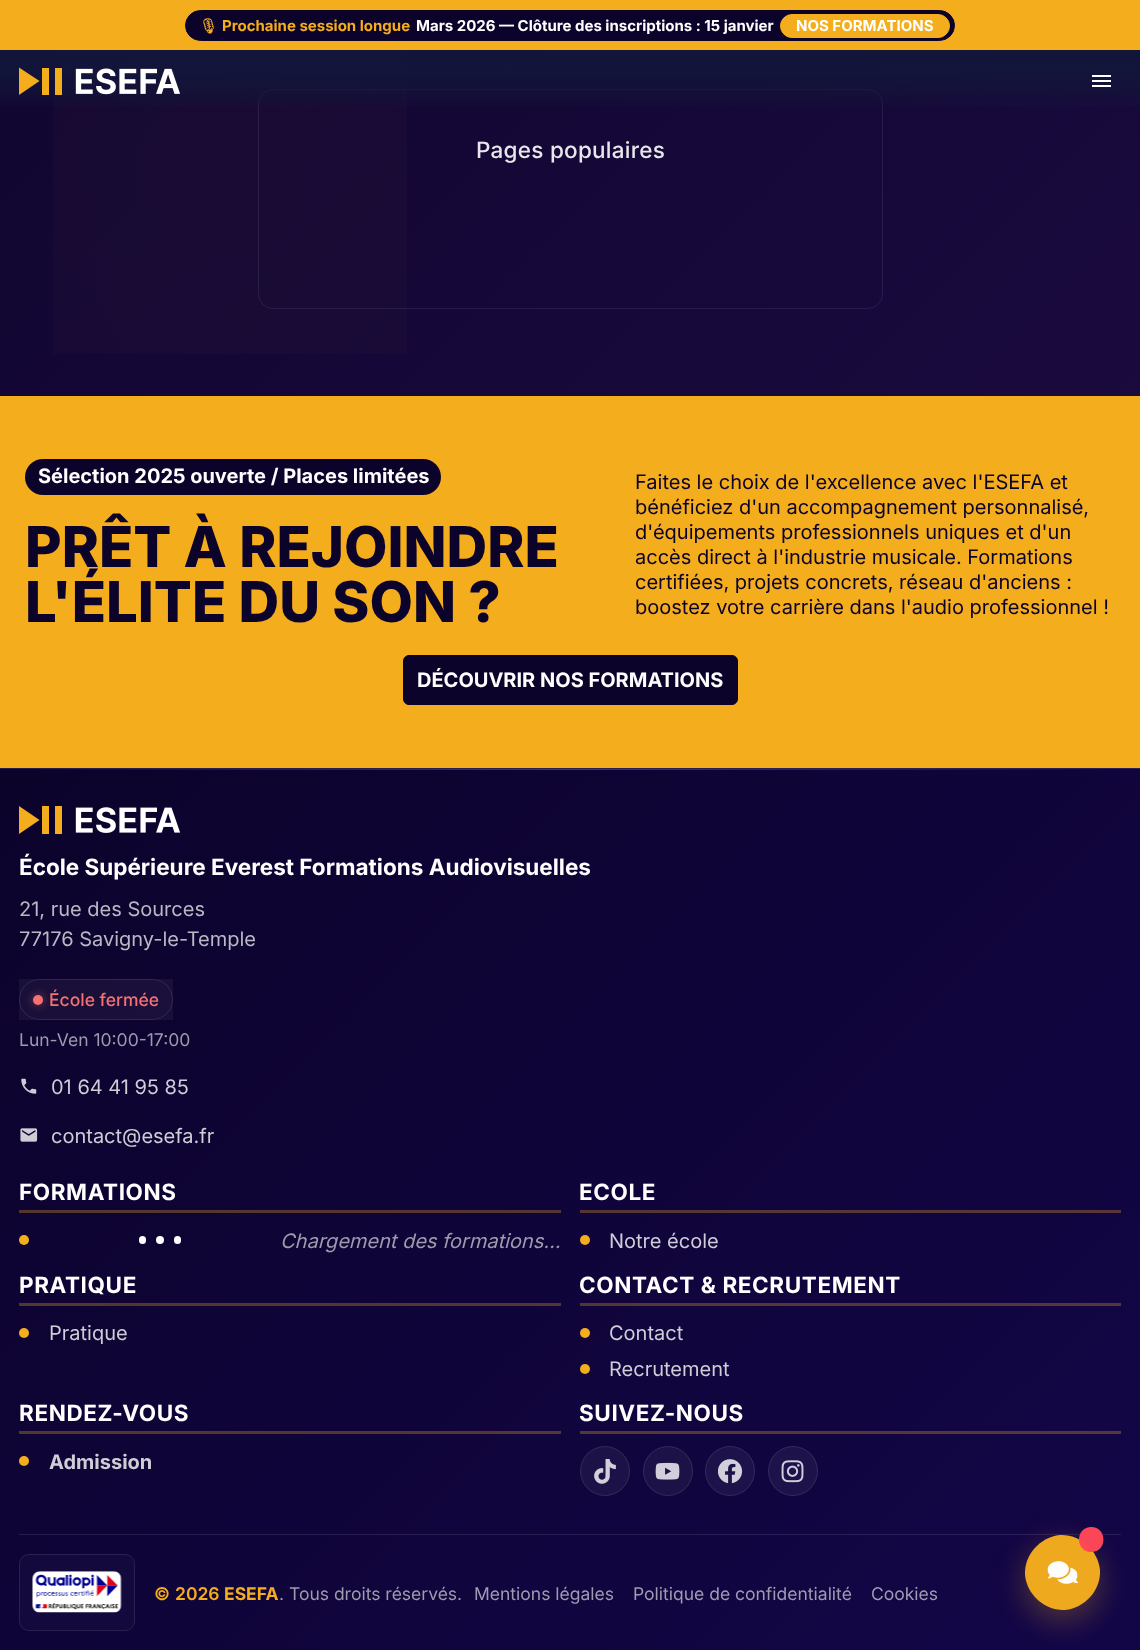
<svg xmlns="http://www.w3.org/2000/svg" width="1140" height="1650" viewBox="0 0 1140 1650">
  <defs>
    <linearGradient id="g1" gradientUnits="userSpaceOnUse" x1="10" y1="-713" x2="1130" y2="407"><stop offset="0" stop-color="rgb(12,3,43)"/><stop offset="1" stop-color="rgb(26,10,62)"/></linearGradient>
    <radialGradient id="g2" gradientUnits="userSpaceOnUse" cx="228" cy="177" r="1267"><stop offset="0" stop-color="rgb(244,173,29)" stop-opacity="0.03"/><stop offset="0.5" stop-color="rgb(244,173,29)" stop-opacity="0"/></radialGradient>
    <linearGradient id="g3" gradientUnits="userSpaceOnUse" x1="570" y1="50" x2="570" y2="113"><stop offset="0" stop-color="rgb(18,22,58)"/><stop offset="1" stop-color="rgb(18,22,58)" stop-opacity="0"/></linearGradient>
    <linearGradient id="g4" gradientUnits="userSpaceOnUse" x1="65" y1="-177" x2="1075" y2="833"><stop offset="0" stop-color="rgb(36,28,64)"/><stop offset="1" stop-color="rgb(43,31,90)"/></linearGradient>
    <linearGradient id="g5" gradientUnits="userSpaceOnUse" x1="65" y1="704" x2="1075" y2="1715"><stop offset="0" stop-color="rgb(12,3,43)"/><stop offset="1" stop-color="rgb(19,6,72)"/></linearGradient>
    <linearGradient id="g6" gradientUnits="userSpaceOnUse" x1="65" y1="704" x2="1075" y2="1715"><stop offset="0" stop-color="rgb(82,54,39)"/><stop offset="1" stop-color="rgb(87,56,59)"/></linearGradient>
    <linearGradient id="g7" gradientUnits="userSpaceOnUse" x1="65" y1="704" x2="1075" y2="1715"><stop offset="0" stop-color="rgb(36,28,64)"/><stop offset="1" stop-color="rgb(43,31,90)"/></linearGradient>
    <linearGradient id="g8" gradientUnits="userSpaceOnUse" x1="0" y1="769" x2="1140" y2="769"><stop offset="0" stop-color="rgb(244,173,29)" stop-opacity="0"/><stop offset="0.5" stop-color="rgb(244,173,29)" stop-opacity="0.3"/><stop offset="1" stop-color="rgb(244,173,29)" stop-opacity="0"/></linearGradient>
  </defs>
  <rect width="100%" height="100%" fill="rgb(255,255,255)"/>
  <rect x="0" y="0" width="1140" height="50" fill="rgb(244,173,29)"/>
  <rect x="185.5" y="10.5" width="769" height="30" rx="15" fill="rgb(12,3,43)" stroke="rgb(12,3,43)"/>
  <text x="199" y="31" font-family="Noto Emoji" font-size="15" font-weight="bold" fill="rgb(244,173,29)">🎙</text>
  <text x="222" y="31" font-family="Inter" font-size="15" font-weight="bold" fill="rgb(244,173,29)">Prochaine session longue</text>
  <text x="416" y="31" font-family="Inter" font-size="15" font-weight="bold" fill="rgb(255,255,255)">Mars 2026 — Clôture des inscriptions : 15 janvier</text>
  <rect x="780.5" y="14.5" width="169" height="23" rx="11.5" fill="rgb(244,173,29)" stroke="rgb(244,173,29)"/>
  <text x="796" y="31" font-family="Inter" font-size="15" font-weight="bold" fill="rgb(255,255,255)">NOS FORMATIONS</text>
  <rect x="0" y="50" width="1140" height="346" fill="url(#g1)"/>
  <rect x="53" y="50" width="354" height="304" fill="url(#g2)"/>
  <rect x="258.5" y="89.5" width="624" height="219" rx="14.5" fill="none" stroke="rgba(255,255,255,0.08)"/>
  <rect x="0" y="50" width="1140" height="56" fill="url(#g3)"/>
  <rect x="0" y="62" width="1140" height="44" fill="url(#g3)"/>
  <path d="M39.5 81L19 95V67.5Z" fill="rgb(244,173,29)"/>
  <rect x="42" y="68" width="7" height="27" fill="rgb(244,173,29)"/>
  <rect x="55" y="68" width="7" height="27" fill="rgb(244,173,29)"/>
  <image x="75" y="68" width="105" height="27" href="pic1.png"/>
  <rect x="1092" y="75" width="19" height="2" fill="rgb(255,255,255)"/>
  <rect x="1092" y="80" width="19" height="2" fill="rgb(255,255,255)"/>
  <rect x="1092" y="85" width="19" height="2" fill="rgb(255,255,255)"/>
  <text x="476" y="158" font-family="Inter" font-size="22.5" font-weight="500" letter-spacing="0.25" fill="rgb(232,231,235)">Pages populaires</text>
  <rect x="0" y="396" width="1140" height="372" fill="rgb(244,173,29)"/>
  <rect x="25" y="459" width="416" height="36" rx="18" fill="rgb(12,3,43)"/>
  <text x="38" y="483" font-family="Inter" font-size="20" font-weight="bold" fill="rgb(255,255,255)">Sélection 2025 ouverte / Places limitées</text>
  <g font-family="Inter" font-size="56.25" font-weight="800" fill="rgb(12,3,43)">
    <text>
      <tspan x="25" y="567">PRÊT À REJOINDRE</tspan>
      <tspan x="25" y="622">L'ÉLITE DU SON ?</tspan>
    </text>
  </g>
  <g font-family="Inter" font-size="20" fill="rgb(12,3,43)">
    <text>
      <tspan x="635" y="489">Faites le choix de l'excellence avec l'ESEFA et</tspan>
      <tspan x="635" y="514">bénéficiez d'un accompagnement personnalisé,</tspan>
      <tspan x="635" y="539">d'équipements professionnels uniques et d'un</tspan>
      <tspan x="635" y="564">accès direct à l'industrie musicale. Formations</tspan>
      <tspan x="635" y="589">certifiées, projets concrets, réseau d'anciens :</tspan>
      <tspan x="635" y="614">boostez votre carrière dans l'audio professionnel !</tspan>
    </text>
  </g>
  <rect x="403.5" y="655.5" width="334" height="49" rx="5.5" fill="rgb(12,3,43)" stroke="rgb(12,3,43)"/>
  <text x="417" y="687" font-family="Inter" font-size="20" font-weight="bold" fill="rgb(255,255,255)">DÉCOUVRIR NOS FORMATIONS</text>
  <rect x="0" y="768" width="1140" height="1" fill="url(#g4)"/>
  <rect x="0" y="769" width="1140" height="881" fill="url(#g5)"/>
  <rect x="580" y="1431" width="541" height="3" fill="url(#g6)"/>
  <rect x="19" y="1431" width="542" height="3" fill="url(#g6)"/>
  <rect x="580" y="1303" width="541" height="3" fill="url(#g6)"/>
  <rect x="19" y="1303" width="542" height="3" fill="url(#g6)"/>
  <rect x="580" y="1210" width="541" height="3" fill="url(#g6)"/>
  <rect x="19" y="1210" width="542" height="3" fill="url(#g6)"/>
  <rect x="19" y="1534" width="1102" height="1" fill="url(#g7)"/>
  <rect x="41" y="769" width="1058" height="1" fill="url(#g8)"/>
  <path d="M39.5 820L19 834V806Z" fill="rgb(244,173,29)"/>
  <rect x="42" y="806" width="7" height="28" fill="rgb(244,173,29)"/>
  <rect x="55" y="806" width="7" height="28" fill="rgb(244,173,29)"/>
  <image x="75" y="807" width="105" height="26" href="pic2.png"/>
  <text x="19" y="875" font-family="Inter" font-size="22.5" font-weight="bold" fill="rgb(255,255,255)">École Supérieure Everest Formations Audiovisuelles</text>
  <g font-family="Inter" font-size="20" fill="rgb(187,184,197)">
    <text>
      <tspan x="19" y="916">21, rue des Sources</tspan>
      <tspan x="19" y="946">77176 Savigny-le-Temple</tspan>
    </text>
  </g>
  <rect x="19" y="979" width="154" height="41" fill="rgba(255,255,255,0.05)"/>
  <rect x="19.5" y="979.5" width="153" height="40" rx="20" fill="none" stroke="rgba(255,255,255,0.1)"/>
  <rect x="33" y="995" width="10" height="10" rx="5" fill="rgba(248,113,113,0.5)" filter="blur(5px)"/>
  <circle cx="38" cy="1000" r="5" fill="rgb(248,113,113)"/>
  <text x="49" y="1006" font-family="Inter" font-size="17.5" font-weight="500" fill="rgb(248,113,113)">École fermée</text>
  <text x="19" y="1046" font-family="Inter" font-size="17.5" fill="rgb(158,155,172)">Lun-Ven 10:00-17:00</text>
  <image x="21" y="1078" width="16" height="16" href="pic3.png"/>
  <text x="51" y="1094" font-family="Inter" font-size="20" fill="rgb(207,205,214)">01 64 41 95 85</text>
  <image x="20" y="1128" width="18" height="14" href="pic4.png"/>
  <text x="51" y="1143" font-family="Inter" font-size="20" fill="rgb(207,205,214)">contact@esefa.fr</text>
  <text x="19" y="1200" font-family="Inter" font-size="22.5" font-weight="bold" letter-spacing="0.6" fill="rgb(255,255,255)">FORMATIONS</text>
  <circle cx="24" cy="1240" r="5" fill="rgb(244,173,29)"/>
  <rect x="139" y="1236" width="7" height="8" rx="3.5" fill="rgb(255,255,255)"/>
  <circle cx="160" cy="1240" r="4" fill="rgb(255,255,255)"/>
  <rect x="174" y="1236" width="7" height="8" rx="3.5" fill="rgb(255,255,255)"/>
  <text x="280" y="1248" font-family="Inter" font-size="20" font-style="italic" fill="rgb(158,155,172)">Chargement des formations...</text>
  <text x="579" y="1200" font-family="Inter" font-size="22.5" font-weight="bold" letter-spacing="0.6" fill="rgb(255,255,255)">ECOLE</text>
  <circle cx="585" cy="1240" r="5" fill="rgb(244,173,29)"/>
  <text x="609" y="1248" font-family="Inter" font-size="20" fill="rgb(207,205,214)">Notre école</text>
  <text x="19" y="1293" font-family="Inter" font-size="22.5" font-weight="bold" letter-spacing="0.6" fill="rgb(255,255,255)">PRATIQUE</text>
  <circle cx="24" cy="1333" r="5" fill="rgb(244,173,29)"/>
  <text x="49" y="1340" font-family="Inter" font-size="20" fill="rgb(207,205,214)">Pratique</text>
  <text x="579" y="1293" font-family="Inter" font-size="22.5" font-weight="bold" letter-spacing="0.6" fill="rgb(255,255,255)">CONTACT &amp; RECRUTEMENT</text>
  <circle cx="585" cy="1333" r="5" fill="rgb(244,173,29)"/>
  <text x="609" y="1340" font-family="Inter" font-size="20" fill="rgb(207,205,214)">Contact</text>
  <circle cx="585" cy="1369" r="5" fill="rgb(244,173,29)"/>
  <text x="609" y="1376" font-family="Inter" font-size="20" fill="rgb(207,205,214)">Recrutement</text>
  <text x="19" y="1421" font-family="Inter" font-size="22.5" font-weight="bold" letter-spacing="0.6" fill="rgb(255,255,255)">RENDEZ-VOUS</text>
  <circle cx="24" cy="1461" r="5" fill="rgb(244,173,29)"/>
  <text x="49" y="1469" font-family="Inter" font-size="20" font-weight="bold" fill="rgb(207,205,214)">Admission</text>
  <text x="579" y="1421" font-family="Inter" font-size="22.5" font-weight="bold" letter-spacing="0.6" fill="rgb(255,255,255)">SUIVEZ-NOUS</text>
  <circle cx="605" cy="1471" r="25" fill="rgb(29,18,71)"/>
  <circle cx="605" cy="1471" r="24.5" fill="none" stroke="rgba(255,255,255,0.1)"/>
  <image x="594" y="1459" width="22" height="25" href="pic5.png"/>
  <circle cx="668" cy="1471" r="25" fill="rgb(29,18,72)"/>
  <circle cx="668" cy="1471" r="24.5" fill="none" stroke="rgba(255,255,255,0.1)"/>
  <image x="655" y="1462" width="25" height="18" href="pic6.png"/>
  <circle cx="730" cy="1471" r="25" fill="rgb(29,18,73)"/>
  <circle cx="730" cy="1471" r="24.5" fill="none" stroke="rgba(255,255,255,0.1)"/>
  <image x="718" y="1459" width="25" height="25" href="pic7.png"/>
  <circle cx="793" cy="1471" r="25" fill="rgb(29,18,74)"/>
  <circle cx="793" cy="1471" r="24.5" fill="none" stroke="rgba(255,255,255,0.1)"/>
  <image x="781" y="1460" width="23" height="23" href="pic8.png"/>
  <rect x="19.5" y="1554.5" width="115" height="76" rx="9.5" fill="rgb(20,9,60)" stroke="rgb(43,33,79)"/>
  <image x="32" y="1571" width="90" height="42" href="pic9.png"/>
  <g font-family="Inter" font-size="17.5" font-weight="600" fill="rgb(244,173,29)">
    <text x="154" y="1600">©</text>
    <text x="175" y="1600">2026</text>
  </g>
  <text x="224" y="1600" font-family="Inter" font-size="17.5" font-weight="bold" fill="rgb(244,173,29)">ESEFA</text>
  <text x="279" y="1600" font-family="Inter" font-size="17.5" fill="rgb(158,155,172)">. Tous droits réservés.</text>
  <g font-family="Inter" font-size="17.5" fill="rgb(160,155,178)">
    <text x="474" y="1600">Mentions légales</text>
    <text x="633" y="1600">Politique de confidentialité</text>
    <text x="871" y="1600">Cookies</text>
  </g>
  <rect x="1025" y="1545" width="75" height="75" rx="37.5" fill="rgba(244,173,29,0.29)" filter="blur(15.5px)"/>
  <path d="M1060 1535C1080 1534 1098 1550 1100 1570C1101 1590 1085 1608 1065 1610C1045 1611 1027 1595 1025 1575C1024 1555 1040 1537 1060 1535Z" fill="rgb(239,169,30)"/>
  <path d="M1090.5 1527C1106.5 1526 1108.5 1551 1092 1552C1076 1553 1074 1528.5 1090.5 1527Z" fill="rgba(255,71,87,0.98)"/>
  <image x="1047" y="1561" width="31" height="23" href="pic10.png"/>
</svg>
